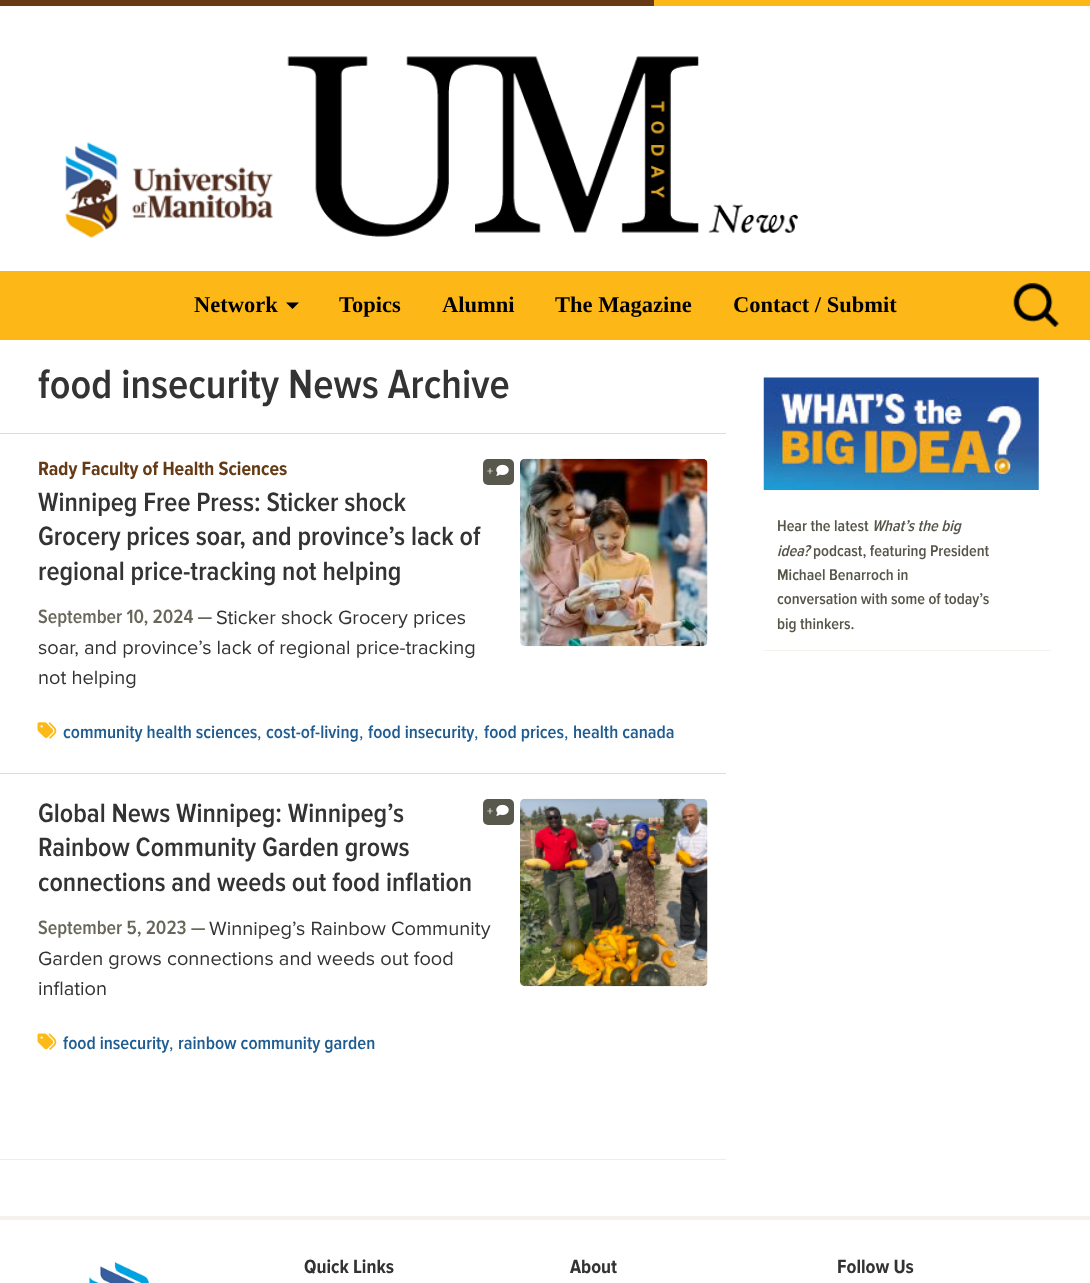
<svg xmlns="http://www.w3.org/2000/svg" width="1090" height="1283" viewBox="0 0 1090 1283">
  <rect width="100%" height="100%" fill="rgb(255,255,255)"/>
  <rect x="0" y="0" width="654" height="6" fill="rgb(101,58,21)"/>
  <rect x="654" y="0" width="436" height="6" fill="rgb(253,184,23)"/>
  <image x="65" y="142" width="208" height="96" href="pic1.png"/>
  <image x="287" y="56" width="511" height="181" href="pic2.png"/>
  <rect x="0" y="271" width="1090" height="69" fill="rgb(253,184,23)"/>
  <text x="194" y="312" font-family="Liberation Serif" font-size="22.5" font-weight="bold" fill="rgb(0,0,0)">Network</text>
  <path d="M286 302.5H299L292.5 309Z" fill="rgb(0,0,0)"/>
  <g font-family="Liberation Serif" font-size="22.5" font-weight="bold" fill="rgb(0,0,0)">
    <text x="339" y="312">Topics</text>
    <text x="442" y="312">Alumni</text>
    <text x="555" y="312">The Magazine</text>
    <text x="733" y="312">Contact / Submit</text>
  </g>
  <image x="1013" y="283" width="46" height="44" href="pic3.png"/>
  <text x="38" y="398" font-family="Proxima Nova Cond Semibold" font-size="42.5" font-weight="600" fill="rgb(51,51,51)">food insecurity News Archive</text>
  <rect x="0" y="433" width="726" height="1" fill="rgb(221,221,221)"/>
  <text x="38" y="475" font-family="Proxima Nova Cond" font-size="20" font-weight="bold" fill="rgb(101,59,21)">Rady Faculty of Health Sciences</text>
  <rect x="483" y="459" width="31" height="26" rx="5" fill="rgb(89,88,77)"/>
  <text x="487" y="475" font-family="Proxima Nova" font-size="12" fill="rgb(255,255,255)">+</text>
  <image x="496" y="464" width="13" height="12" href="pic4.png"/>
  <image x="520" y="458" width="188" height="189" href="pic5.png"/>
  <g font-family="Proxima Nova Cond Semibold" font-size="27.5" font-weight="600" fill="rgb(51,51,51)">
    <text>
      <tspan x="38" y="511">Winnipeg Free Press: Sticker shock</tspan>
      <tspan x="38" y="545">Grocery prices soar, and province’s lack of</tspan>
      <tspan x="38" y="580">regional price-tracking not helping</tspan>
    </text>
  </g>
  <text x="38" y="623" font-family="Proxima Nova Cond Semibold" font-size="20" font-weight="600" fill="rgb(105,103,91)">September 10, 2024 —</text>
  <g font-family="Proxima Nova" font-size="20" fill="rgb(51,51,51)">
    <text x="216" y="624">Sticker shock Grocery prices</text>
    <text>
      <tspan x="38" y="654">soar, and province’s lack of regional price-tracking</tspan>
      <tspan x="38" y="684">not helping</tspan>
    </text>
  </g>
  <image x="37" y="722" width="20" height="17" href="pic6.png"/>
  <text x="63" y="738" font-family="Proxima Nova Cond Semibold" font-size="18.75" font-weight="600" fill="rgb(30,92,145)">community health sciences</text>
  <text x="257" y="738" font-family="Proxima Nova" font-size="18.75" fill="rgb(30,92,145)">,</text>
  <text x="266" y="738" font-family="Proxima Nova Cond Semibold" font-size="18.75" font-weight="600" fill="rgb(30,92,145)">cost-of-living</text>
  <text x="359" y="738" font-family="Proxima Nova" font-size="18.75" fill="rgb(30,92,145)">,</text>
  <text x="368" y="738" font-family="Proxima Nova Cond Semibold" font-size="18.75" font-weight="600" fill="rgb(30,92,145)">food insecurity</text>
  <text x="474" y="738" font-family="Proxima Nova" font-size="18.75" fill="rgb(30,92,145)">,</text>
  <text x="484" y="738" font-family="Proxima Nova Cond Semibold" font-size="18.75" font-weight="600" fill="rgb(30,92,145)">food prices</text>
  <text x="564" y="738" font-family="Proxima Nova" font-size="18.75" fill="rgb(30,92,145)">,</text>
  <text x="573" y="738" font-family="Proxima Nova Cond Semibold" font-size="18.75" font-weight="600" fill="rgb(30,92,145)">health canada</text>
  <rect x="0" y="773" width="726" height="1" fill="rgb(221,221,221)"/>
  <g font-family="Proxima Nova Cond Semibold" font-size="27.5" font-weight="600" fill="rgb(51,51,51)">
    <text>
      <tspan x="38" y="822">Global News Winnipeg: Winnipeg’s</tspan>
      <tspan x="38" y="856">Rainbow Community Garden grows</tspan>
      <tspan x="38" y="891">connections and weeds out food inflation</tspan>
    </text>
  </g>
  <rect x="483" y="799" width="31" height="26" rx="5" fill="rgb(89,88,77)"/>
  <text x="487" y="815" font-family="Proxima Nova" font-size="12" fill="rgb(255,255,255)">+</text>
  <image x="496" y="804" width="13" height="12" href="pic4.png"/>
  <image x="520" y="798" width="188" height="189" href="pic7.png"/>
  <text x="38" y="934" font-family="Proxima Nova Cond Semibold" font-size="20" font-weight="600" fill="rgb(105,103,91)">September 5, 2023 —</text>
  <g font-family="Proxima Nova" font-size="20" fill="rgb(51,51,51)">
    <text x="209" y="935">Winnipeg’s Rainbow Community</text>
    <text>
      <tspan x="38" y="965">Garden grows connections and weeds out food</tspan>
      <tspan x="38" y="995">inflation</tspan>
    </text>
  </g>
  <image x="37" y="1033" width="20" height="17" href="pic8.png"/>
  <text x="63" y="1049" font-family="Proxima Nova Cond Semibold" font-size="18.75" font-weight="600" fill="rgb(30,92,145)">food insecurity</text>
  <text x="169" y="1049" font-family="Proxima Nova" font-size="18.75" fill="rgb(30,92,145)">,</text>
  <text x="178" y="1049" font-family="Proxima Nova Cond Semibold" font-size="18.75" font-weight="600" fill="rgb(30,92,145)">rainbow community garden</text>
  <rect x="0" y="1159" width="726" height="1" fill="rgb(241,236,233)"/>
  <image x="763" y="377" width="276" height="113" href="pic9.png"/>
  <rect x="764" y="650" width="287" height="1" fill="rgb(245,241,237)"/>
  <text x="777" y="531" font-family="Proxima Nova Cond Semibold" font-size="16.25" font-weight="600" fill="rgb(88,86,75)">Hear the latest</text>
  <g font-family="Proxima Nova Cond Semibold" font-size="16.25" font-weight="600" font-style="italic" fill="rgb(88,86,75)">
    <text x="872" y="531">What’s the big</text>
    <text x="777" y="556">idea?</text>
  </g>
  <g font-family="Proxima Nova Cond Semibold" font-size="16.25" font-weight="600" fill="rgb(88,86,75)">
    <text x="813" y="556">podcast, featuring President</text>
    <text>
      <tspan x="777" y="580">Michael Benarroch in</tspan>
      <tspan x="777" y="604">conversation with some of today’s</tspan>
      <tspan x="777" y="629">big thinkers.</tspan>
    </text>
  </g>
  <rect x="0" y="1216" width="1090" height="4" fill="rgb(245,241,237)"/>
  <image x="89" y="1262" width="60" height="21" href="pic10.png"/>
  <g font-family="Proxima Nova Cond" font-size="20" font-weight="bold" fill="rgb(51,51,51)">
    <text x="304" y="1273">Quick Links</text>
    <text x="570" y="1273">About</text>
    <text x="837" y="1273">Follow Us</text>
  </g>
</svg>
